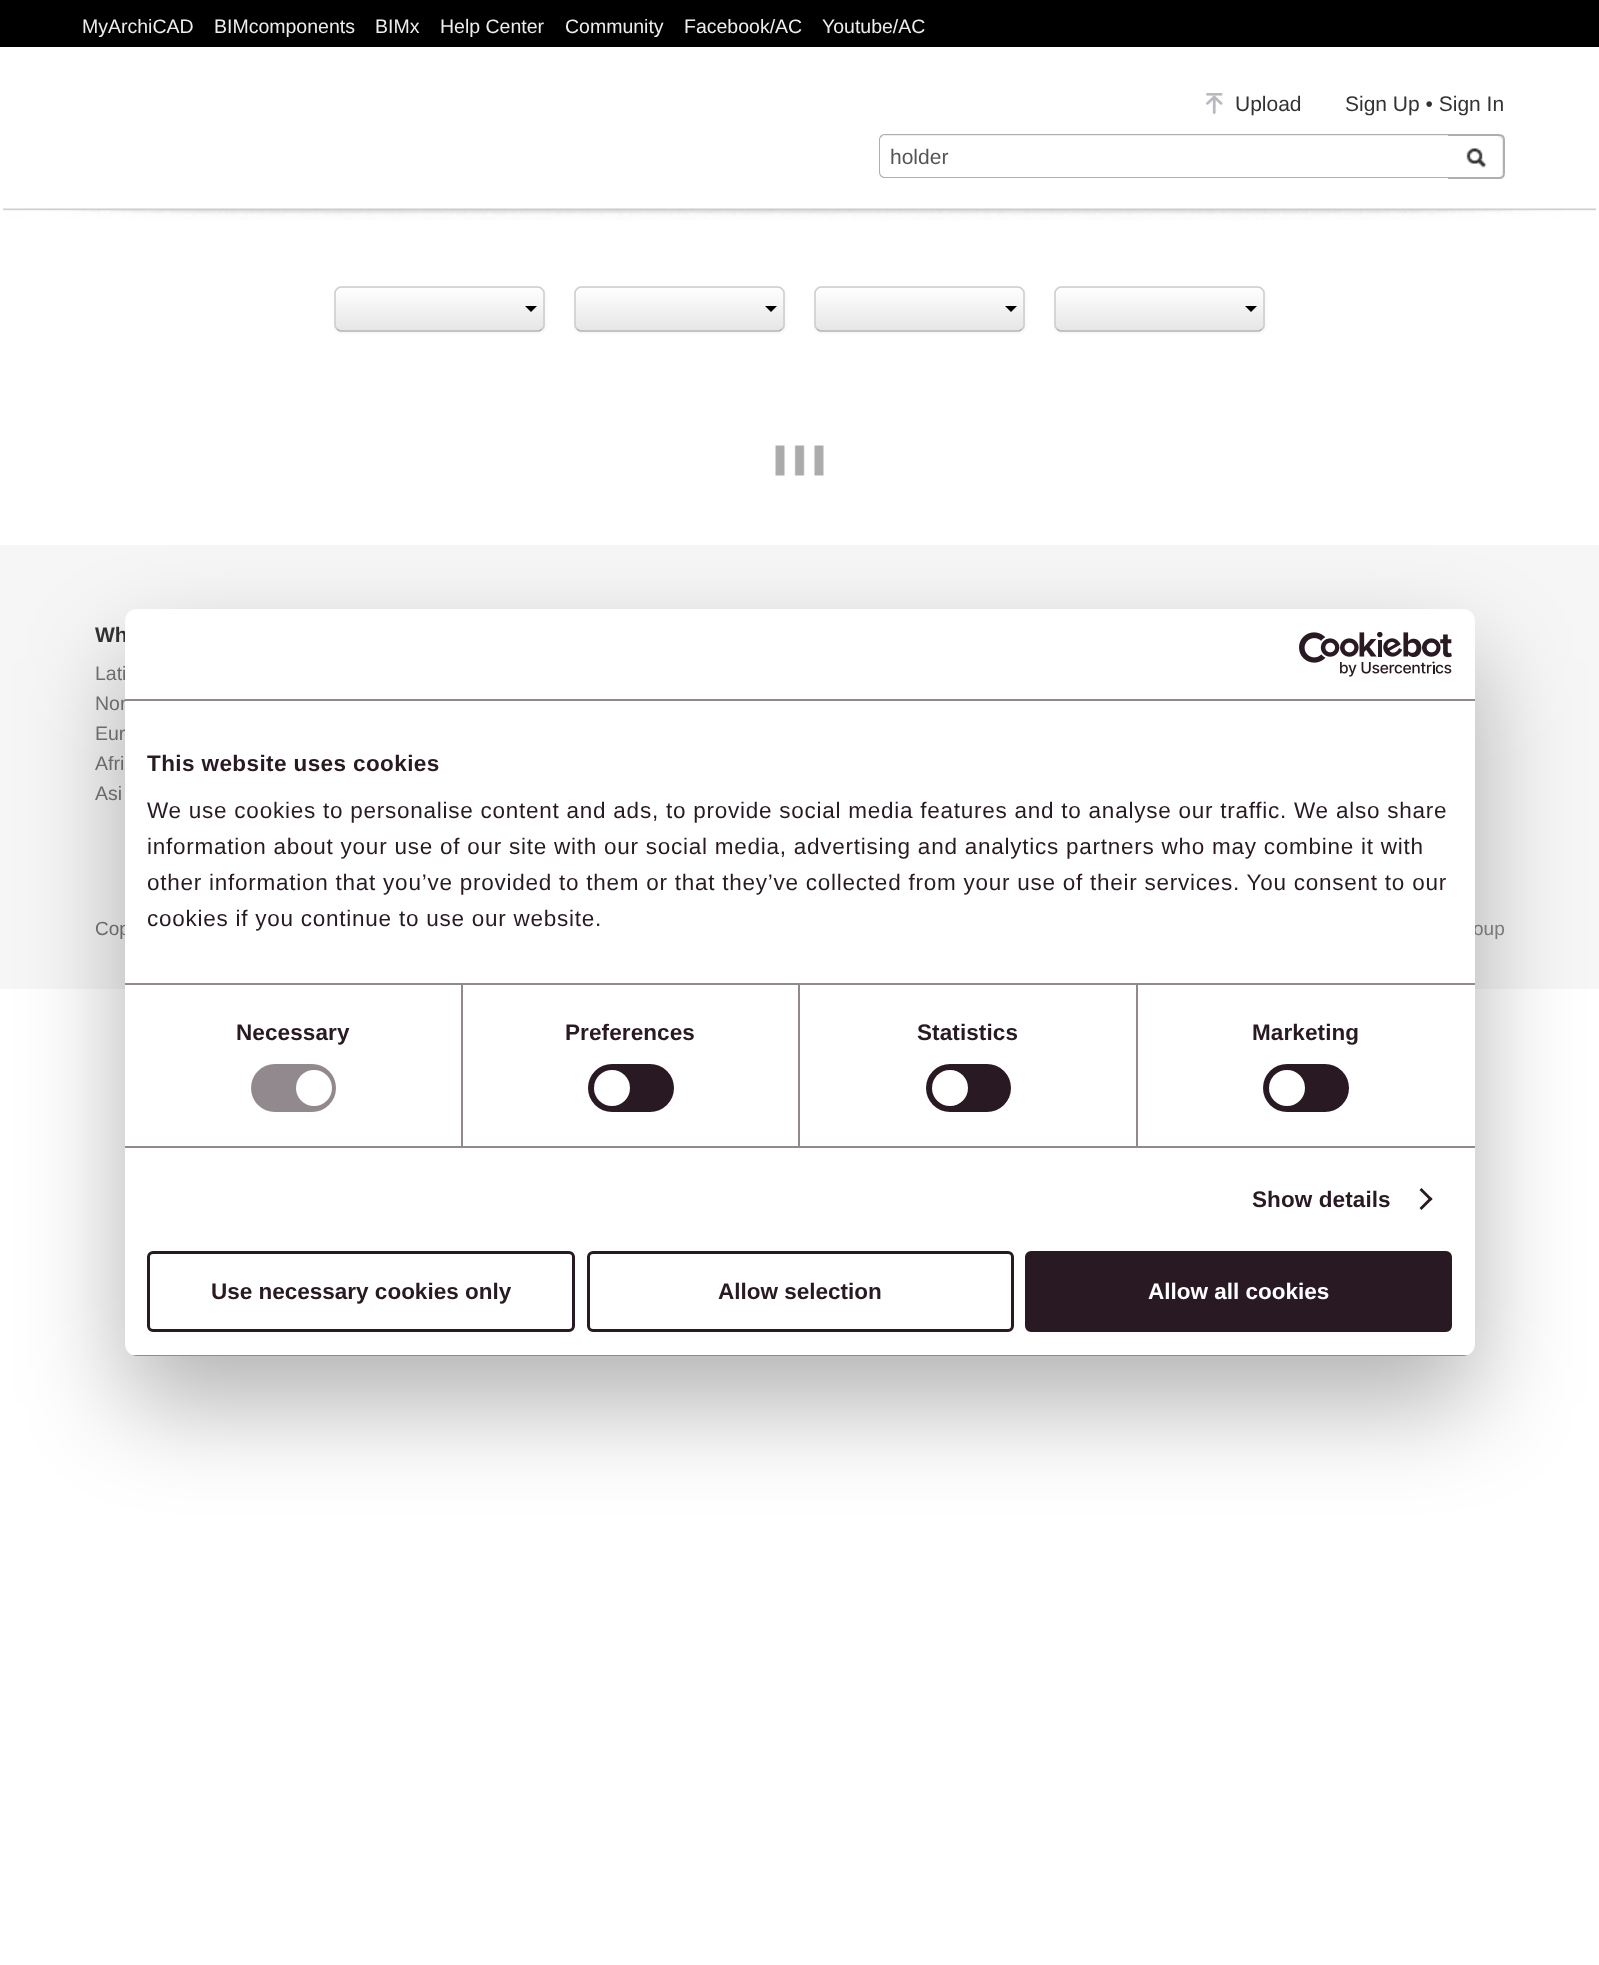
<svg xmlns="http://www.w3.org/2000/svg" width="1599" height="1965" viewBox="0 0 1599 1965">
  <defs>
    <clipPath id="clip1"><rect x="335" y="287" width="210" height="45" rx="6"/></clipPath>
    <linearGradient id="g1" gradientUnits="userSpaceOnUse" x1="440" y1="288" x2="440" y2="330"><stop offset="0" stop-color="rgb(255,255,255)"/><stop offset="1" stop-color="rgb(230,230,230)"/></linearGradient>
    <clipPath id="clip2"><rect x="575" y="287" width="210" height="45" rx="6"/></clipPath>
    <linearGradient id="g2" gradientUnits="userSpaceOnUse" x1="680" y1="288" x2="680" y2="330"><stop offset="0" stop-color="rgb(255,255,255)"/><stop offset="1" stop-color="rgb(230,230,230)"/></linearGradient>
    <clipPath id="clip3"><rect x="815" y="287" width="210" height="45" rx="6"/></clipPath>
    <linearGradient id="g3" gradientUnits="userSpaceOnUse" x1="920" y1="288" x2="920" y2="330"><stop offset="0" stop-color="rgb(255,255,255)"/><stop offset="1" stop-color="rgb(230,230,230)"/></linearGradient>
    <clipPath id="clip4"><rect x="1055" y="287" width="210" height="45" rx="6"/></clipPath>
    <linearGradient id="g4" gradientUnits="userSpaceOnUse" x1="1160" y1="288" x2="1160" y2="330"><stop offset="0" stop-color="rgb(255,255,255)"/><stop offset="1" stop-color="rgb(230,230,230)"/></linearGradient>
    <clipPath id="clip5"><rect x="125" y="609" width="1350" height="747" rx="12"/></clipPath>
  </defs>
  <rect width="100%" height="100%" fill="rgb(255,255,255)"/>
  <rect x="0" y="0" width="1599" height="47" fill="rgb(0,0,0)"/>
  <g font-family="Liberation Sans" font-size="19.5" fill="rgb(237,237,237)">
    <text x="82" y="33">MyArchiCAD</text>
    <text x="214" y="33">BIMcomponents</text>
    <text x="375" y="33">BIMx</text>
    <text x="440" y="33">Help Center</text>
    <text x="565" y="33">Community</text>
    <text x="684" y="33">Facebook/AC</text>
    <text x="822" y="33">Youtube/AC</text>
  </g>
  <image x="1206" y="93" width="17" height="21" href="pic1.png"/>
  <g font-family="Liberation Sans" font-size="21" fill="rgb(51,51,51)">
    <text x="1235" y="111">Upload</text>
    <text x="1345" y="111">Sign Up • Sign In</text>
  </g>
  <path d="M1448 135V136H1497C1499 136 1502 139 1502 141V174L1501 176C1502 175 1503 174 1503 172V140C1503 137 1501 135 1498 135Z" fill="rgb(236,236,236)"/>
  <path d="M1447 135H1499C1502 135 1504 137 1504 140V173C1504 176 1502 178 1499 178H1447Z" fill="none" stroke="rgb(173,175,178)" stroke-width="2"/>
  <path d="M885 134H1448V179H885C881.5 179 879 176.5 879 173V140C879 136.5 881.5 134 885 134Z" fill="rgb(255,255,255)"/>
  <path d="M885 136H1448V135H886C884 135 882 136 881 138C882 137 884 136 885 136Z" fill="rgb(236,236,236)"/>
  <path d="M885 134H1448V178H885C882 178 879 176 879 172V140C879 136 882 134 885 134ZM885 135H1448V177H885C883 177 880 175 880 172V140C880 137 883 135 885 135Z" fill="rgb(173,175,178)" fill-rule="evenodd"/>
  <text x="890" y="164" font-family="Liberation Sans" font-size="21" fill="rgb(85,85,85)">holder</text>
  <image x="1466" y="148" width="21" height="20" href="pic2.png"/>
  <image x="3" y="208" width="1593" height="12" href="pic3.png"/>
  <rect x="335" y="288" width="210" height="45" rx="6" fill="rgba(0,0,0,0.05)" filter="blur(1.5px)"/>
  <rect x="335" y="287" width="210" height="45" rx="6" fill="rgb(245,245,245)"/>
  <g clip-path="url(#clip1)">
    <rect x="335" y="288" width="210" height="42" fill="url(#g1)"/>
  </g>
  <path d="M542 329C541 330 540 331 538.5 331H340.5C339 331 338 330 337 329" fill="none" stroke="rgb(179,179,179)" stroke-width="1.5"/>
  <path d="M337 329C336 328 335 327 335 325.5V292.5C335 291 336 290 337 289C338 288 339 287 340.5 287H538.5C540 287 541 288 542 289C543 290 544 291 544 292.5V325.5C544 327 543 328 542 329" fill="none" stroke="rgb(204,204,204)" stroke-width="1.5"/>
  <path d="M525 306H537L531 312Z" fill="rgb(0,0,0)"/>
  <rect x="575" y="288" width="210" height="45" rx="6" fill="rgba(0,0,0,0.05)" filter="blur(1.5px)"/>
  <rect x="575" y="287" width="210" height="45" rx="6" fill="rgb(245,245,245)"/>
  <g clip-path="url(#clip2)">
    <rect x="575" y="288" width="210" height="42" fill="url(#g2)"/>
  </g>
  <path d="M782 329C781 330 780 331 778.5 331H580.5C579 331 578 330 577 329" fill="none" stroke="rgb(179,179,179)" stroke-width="1.5"/>
  <path d="M577 329C576 328 575 327 575 325.5V292.5C575 291 576 290 577 289C578 288 579 287 580.5 287H778.5C780 287 781 288 782 289C783 290 784 291 784 292.5V325.5C784 327 783 328 782 329" fill="none" stroke="rgb(204,204,204)" stroke-width="1.5"/>
  <path d="M765 306H777L771 312Z" fill="rgb(0,0,0)"/>
  <rect x="815" y="288" width="210" height="45" rx="6" fill="rgba(0,0,0,0.05)" filter="blur(1.5px)"/>
  <rect x="815" y="287" width="210" height="45" rx="6" fill="rgb(245,245,245)"/>
  <g clip-path="url(#clip3)">
    <rect x="815" y="288" width="210" height="42" fill="url(#g3)"/>
  </g>
  <path d="M1022 329C1021 330 1020 331 1018.5 331H820.5C819 331 818 330 817 329" fill="none" stroke="rgb(179,179,179)" stroke-width="1.5"/>
  <path d="M817 329C816 328 815 327 815 325.5V292.5C815 291 816 290 817 289C818 288 819 287 820.5 287H1018.5C1020 287 1021 288 1022 289C1023 290 1024 291 1024 292.5V325.5C1024 327 1023 328 1022 329" fill="none" stroke="rgb(204,204,204)" stroke-width="1.5"/>
  <path d="M1005 306H1017L1011 312Z" fill="rgb(0,0,0)"/>
  <rect x="1055" y="288" width="210" height="45" rx="6" fill="rgba(0,0,0,0.05)" filter="blur(1.5px)"/>
  <rect x="1055" y="287" width="210" height="45" rx="6" fill="rgb(245,245,245)"/>
  <g clip-path="url(#clip4)">
    <rect x="1055" y="288" width="210" height="42" fill="url(#g4)"/>
  </g>
  <path d="M1262 329C1261 330 1260 331 1258.5 331H1060.5C1059 331 1058 330 1057 329" fill="none" stroke="rgb(179,179,179)" stroke-width="1.5"/>
  <path d="M1057 329C1056 328 1055 327 1055 325.5V292.5C1055 291 1056 290 1057 289C1058 288 1059 287 1060.5 287H1258.5C1260 287 1261 288 1262 289C1263 290 1264 291 1264 292.5V325.5C1264 327 1263 328 1262 329" fill="none" stroke="rgb(204,204,204)" stroke-width="1.5"/>
  <path d="M1245 306H1257L1251 312Z" fill="rgb(0,0,0)"/>
  <image x="775" y="445" width="49" height="31" href="pic4.png"/>
  <rect x="0" y="545" width="1599" height="444" fill="rgb(246,246,246)"/>
  <text x="95" y="642" font-family="Liberation Sans" font-size="21" font-weight="bold" fill="rgb(51,51,51)">Wh</text>
  <g font-family="Liberation Sans" font-size="19.5" fill="rgb(119,119,119)">
    <text>
      <tspan x="95" y="680">Lati</tspan>
      <tspan x="95" y="710">Nor</tspan>
      <tspan x="95" y="740">Eur</tspan>
      <tspan x="95" y="770">Afri</tspan>
      <tspan x="95" y="800">Asi</tspan>
    </text>
  </g>
  <text x="95" y="935" font-family="Liberation Sans" font-size="19" fill="rgb(119,119,119)">Cop</text>
  <text x="1473" y="935" font-family="Liberation Sans" font-size="19" fill="rgb(136,136,136)">oup</text>
  <rect x="125" y="657" width="1350" height="747" rx="12" fill="rgba(0,0,0,0.3)" filter="blur(51px)"/>
  <rect x="125" y="609" width="1350" height="747" rx="12" fill="rgb(255,255,255)"/>
  <rect x="125" y="699" width="1350" height="2" fill="rgb(146,137,142)"/>
  <image x="1299" y="632" width="153" height="45" href="pic5.png"/>
  <rect x="461" y="984" width="2" height="162" fill="rgb(146,137,142)"/>
  <rect x="798" y="984" width="2" height="162" fill="rgb(146,137,142)"/>
  <rect x="1136" y="984" width="2" height="162" fill="rgb(146,137,142)"/>
  <rect x="125" y="983" width="1350" height="2" fill="rgb(146,137,142)"/>
  <text x="147" y="771" font-family="Liberation Sans" font-size="22.5" font-weight="bold" letter-spacing="0.4" fill="rgb(41,25,35)">This website uses cookies</text>
  <g font-family="Liberation Sans" font-size="22.5" letter-spacing="0.75" fill="rgb(41,25,35)">
    <text>
      <tspan x="147" y="818">We use cookies to personalise content and ads, to provide social media features and to analyse our traffic. We also share</tspan>
      <tspan x="147" y="854">information about your use of our site with our social media, advertising and analytics partners who may combine it with</tspan>
      <tspan x="147" y="890">other information that you’ve provided to them or that they’ve collected from your use of their services. You consent to our</tspan>
      <tspan x="147" y="926">cookies if you continue to use our website.</tspan>
    </text>
  </g>
  <rect x="125" y="1146" width="1350" height="2" fill="rgb(146,137,142)"/>
  <text x="236" y="1040" font-family="Liberation Sans" font-size="22.5" font-weight="bold" letter-spacing="0.1" fill="rgb(41,25,35)">Necessary</text>
  <rect x="251" y="1064" width="85" height="48" rx="24" fill="rgb(146,137,142)"/>
  <circle cx="314" cy="1088" r="18" fill="rgb(255,255,255)"/>
  <text x="565" y="1040" font-family="Liberation Sans" font-size="22.5" font-weight="bold" letter-spacing="0.1" fill="rgb(41,25,35)">Preferences</text>
  <rect x="588" y="1064" width="86" height="48" rx="24" fill="rgb(41,25,35)"/>
  <circle cx="612" cy="1088" r="18" fill="rgb(255,255,255)"/>
  <text x="917" y="1040" font-family="Liberation Sans" font-size="22.5" font-weight="bold" letter-spacing="0.1" fill="rgb(41,25,35)">Statistics</text>
  <rect x="926" y="1064" width="85" height="48" rx="24" fill="rgb(41,25,35)"/>
  <circle cx="950" cy="1088" r="18" fill="rgb(255,255,255)"/>
  <text x="1252" y="1040" font-family="Liberation Sans" font-size="22.5" font-weight="bold" letter-spacing="0.1" fill="rgb(41,25,35)">Marketing</text>
  <rect x="1263" y="1064" width="86" height="48" rx="24" fill="rgb(41,25,35)"/>
  <circle cx="1287" cy="1088" r="18" fill="rgb(255,255,255)"/>
  <text x="1252" y="1207" font-family="Liberation Sans" font-size="22.5" font-weight="bold" letter-spacing="0.1" fill="rgb(41,25,35)">Show details</text>
  <path d="M1421.5 1188L1432.5 1199L1430.5 1201L1419.5 1190Z" fill="rgb(41,25,35)"/>
  <path d="M1430.5 1197L1432.5 1199L1421.5 1210L1419.5 1208Z" fill="rgb(41,25,35)"/>
  <g clip-path="url(#clip5)">
    <rect x="125" y="1355" width="1350" height="1" fill="rgb(146,137,142)"/>
  </g>
  <rect x="148.5" y="1252.5" width="425" height="78" rx="4.5" fill="none" stroke="rgb(41,25,35)" stroke-width="3"/>
  <text x="211" y="1299" font-family="Liberation Sans" font-size="22.5" font-weight="bold" fill="rgb(41,25,35)">Use necessary cookies only</text>
  <rect x="588.5" y="1252.5" width="424" height="78" rx="4.5" fill="none" stroke="rgb(41,25,35)" stroke-width="3"/>
  <text x="718" y="1299" font-family="Liberation Sans" font-size="22.5" font-weight="bold" fill="rgb(41,25,35)">Allow selection</text>
  <rect x="1026.5" y="1252.5" width="424" height="78" rx="4.5" fill="rgb(41,25,35)" stroke="rgb(41,25,35)" stroke-width="3"/>
  <text x="1148" y="1299" font-family="Liberation Sans" font-size="22.5" font-weight="bold" fill="rgb(255,255,255)">Allow all cookies</text>
</svg>
